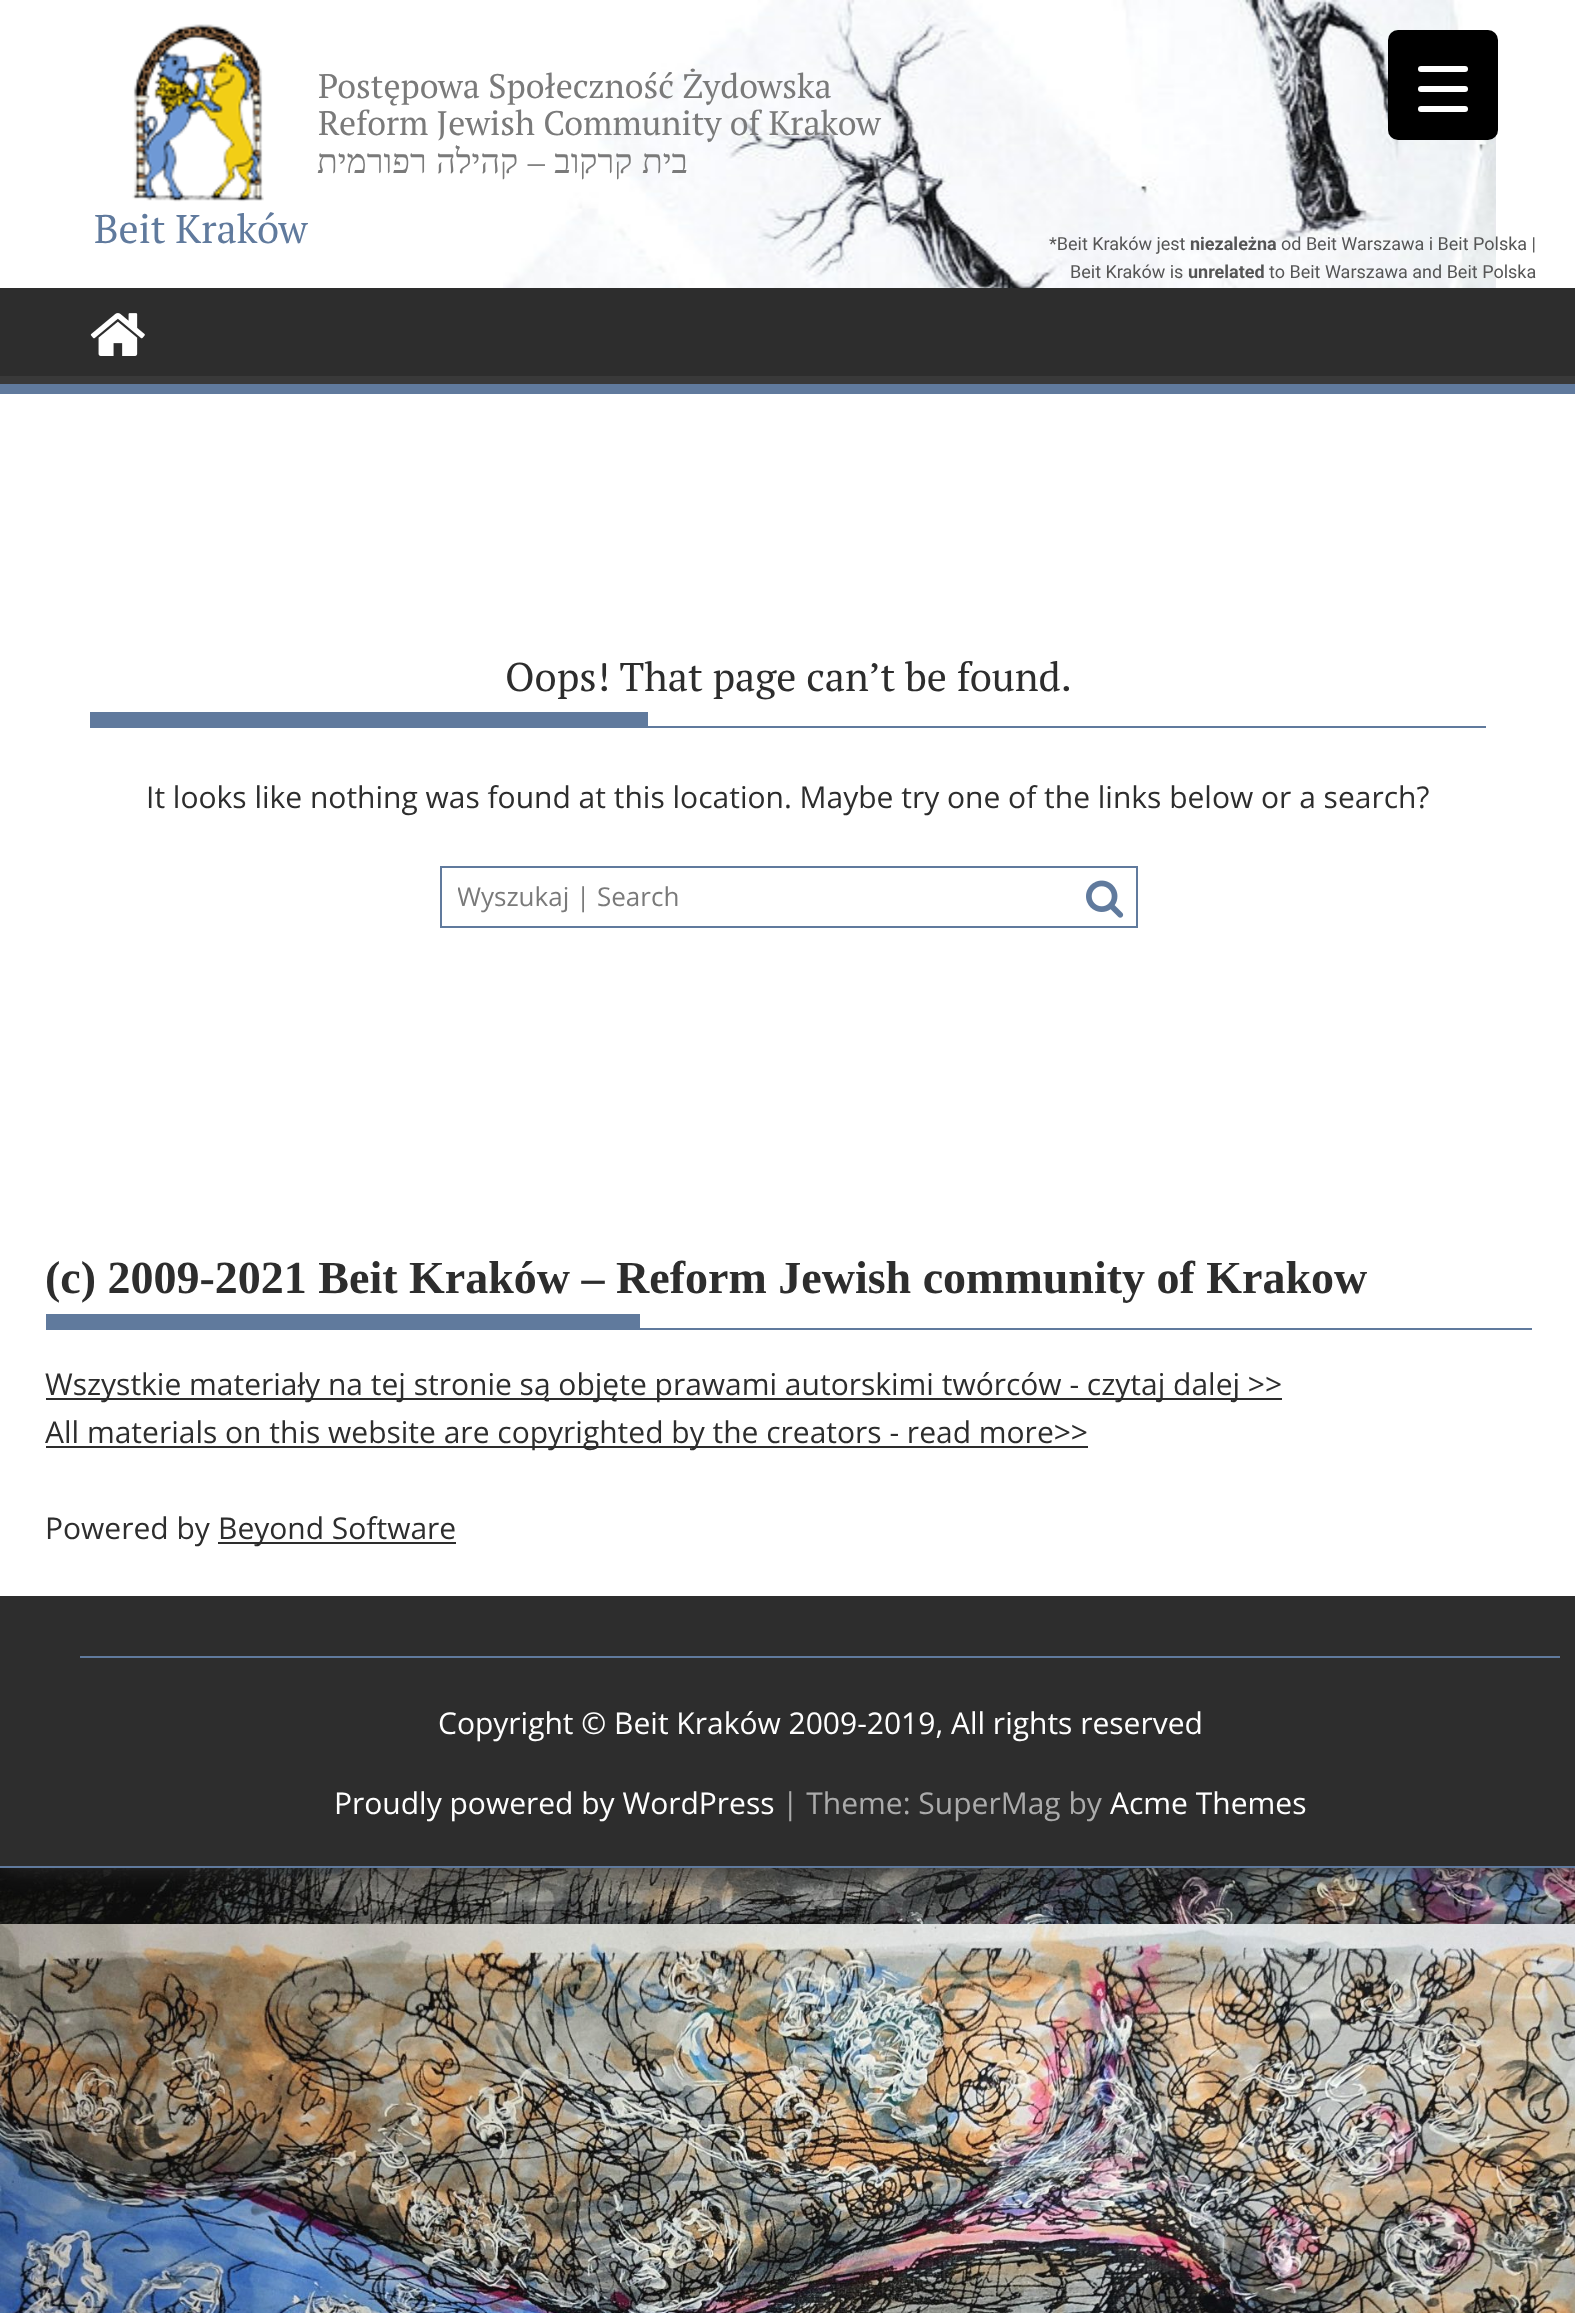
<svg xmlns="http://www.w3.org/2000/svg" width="1575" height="2313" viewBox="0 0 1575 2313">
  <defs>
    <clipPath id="clip1"><rect x="0" y="288" width="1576" height="96"/></clipPath>
    <clipPath id="clip2"><rect x="458" y="878" width="632" height="36"/></clipPath>
  </defs>
  <rect width="100%" height="100%" fill="rgb(255,255,255)"/>
  <image x="0" y="1868" width="1575" height="445" href="pic1.png"/>
  <rect x="0" y="0" width="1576" height="1868" fill="rgb(45,45,45)" filter="blur(12px)"/>
  <rect x="0" y="0" width="1575" height="1596" fill="rgb(255,255,255)"/>
  <image x="503" y="0" width="993" height="288" href="pic2.png"/>
  <rect x="1388" y="30" width="110" height="110" rx="10" fill="rgb(0,0,0)"/>
  <rect x="1418" y="86" width="50" height="6" rx="3" fill="rgb(255,255,255)"/>
  <rect x="1418" y="66" width="50" height="6" rx="3" fill="rgb(255,255,255)"/>
  <rect x="1418" y="106" width="50" height="6" rx="3" fill="rgb(255,255,255)"/>
  <image x="132" y="24" width="132" height="178" href="pic3.png"/>
  <g font-family="PT Serif" font-size="34" fill="rgb(122,122,122)">
    <text>
      <tspan x="318" y="98">Postępowa Społeczność Żydowska</tspan>
      <tspan x="318" y="135">Reform Jewish Community of Krakow</tspan>
    </text>
  </g>
  <text x="688" y="173" word-spacing="1" font-family="Liberation Serif" font-size="34" direction="rtl" fill="rgb(122,122,122)">בית קרקוב – קהילה רפורמית</text>
  <text x="94" y="243" font-family="PT Serif" font-size="40" fill="rgb(96,122,157)">Beit Kraków</text>
  <text x="1049" y="250" font-family="Roboto" font-size="18" fill="rgb(85,85,85)">*Beit Kraków jest</text>
  <text x="1190" y="250" font-family="Roboto" font-size="18" font-weight="bold" fill="rgb(85,85,85)">niezależna</text>
  <g font-family="Roboto" font-size="18" fill="rgb(85,85,85)">
    <text x="1281" y="250">od Beit Warszawa i Beit Polska |</text>
    <text x="1070" y="278">Beit Kraków is</text>
  </g>
  <text x="1188" y="278" font-family="Roboto" font-size="18" font-weight="bold" fill="rgb(85,85,85)">unrelated</text>
  <text x="1269" y="278" font-family="Roboto" font-size="18" fill="rgb(85,85,85)">to Beit Warszawa and Beit Polska</text>
  <rect x="0" y="288" width="1575" height="88" fill="rgb(45,45,45)"/>
  <g clip-path="url(#clip1)">
    <path d="M-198 90H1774V582H-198ZM-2 276H1574C1575 276 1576 277 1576 278V374C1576 375 1575 376 1574 376H-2C-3 376-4 375-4 374V278C-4 277-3 276-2 276Z" fill="rgb(57,57,57)" fill-rule="evenodd"/>
  </g>
  <rect x="0" y="384" width="1575" height="10" fill="rgb(96,122,157)"/>
  <image x="90" y="313" width="55" height="43" href="pic4.png"/>
  <rect x="90" y="726" width="1396" height="2" fill="rgb(96,122,157)"/>
  <text x="505" y="691" font-family="PT Serif" font-size="40" fill="rgb(45,45,45)">Oops! That page can’t be found.</text>
  <rect x="90" y="712" width="558" height="14" fill="rgb(96,122,157)"/>
  <text x="146" y="808" font-family="Open Sans" font-size="30" fill="rgb(45,45,45)">It looks like nothing was found at this location. Maybe try one of the links below or a search?</text>
  <rect x="441" y="867" width="696" height="60" fill="none" stroke="rgb(96,122,157)" stroke-width="2"/>
  <g clip-path="url(#clip2)">
    <text x="457" y="906" font-family="Open Sans" font-size="26" fill="rgb(122,122,122)">Wyszukaj | Search</text>
  </g>
  <image x="1086" y="880" width="38" height="38" href="pic5.png"/>
  <rect x="46" y="1328" width="1486" height="2" fill="rgb(96,122,157)"/>
  <text x="45" y="1293" font-family="Liberation Serif" font-size="46" font-weight="bold" fill="rgb(45,45,45)">(c) 2009-2021 Beit Kraków – Reform Jewish community of Krakow</text>
  <rect x="46" y="1314" width="594" height="14" fill="rgb(96,122,157)"/>
  <rect x="46" y="1398" width="1236" height="2" fill="rgb(45,45,45)"/>
  <text x="45" y="1395" font-family="Open Sans" font-size="30" fill="rgb(45,45,45)">Wszystkie materiały na tej stronie są objęte prawami autorskimi twórców - czytaj dalej &gt;&gt;</text>
  <rect x="46" y="1446" width="1042" height="2" fill="rgb(45,45,45)"/>
  <g font-family="Open Sans" font-size="30" fill="rgb(45,45,45)">
    <text x="45" y="1443">All materials on this website are copyrighted by the creators - read more&gt;&gt;</text>
    <text x="45" y="1539">Powered by</text>
  </g>
  <rect x="218" y="1542" width="238" height="2" fill="rgb(45,45,45)"/>
  <text x="218" y="1539" font-family="Open Sans" font-size="30" fill="rgb(45,45,45)">Beyond Software</text>
  <rect x="0" y="1596" width="1575" height="270" fill="rgb(45,45,45)"/>
  <rect x="0" y="1866" width="1575" height="2" fill="rgb(96,122,157)"/>
  <rect x="80" y="1656" width="1480" height="2" fill="rgb(96,122,157)"/>
  <g font-family="Open Sans" font-size="30" fill="rgb(255,255,255)">
    <text x="438" y="1734">Copyright © Beit Kraków 2009-2019, All rights reserved</text>
    <text x="334" y="1814">Proudly powered by WordPress</text>
  </g>
  <text x="782" y="1814" font-family="Open Sans" font-size="30" fill="rgb(171,171,171)">| Theme: SuperMag by</text>
  <text x="1110" y="1814" font-family="Open Sans" font-size="30" fill="rgb(255,255,255)">Acme Themes</text>
</svg>
